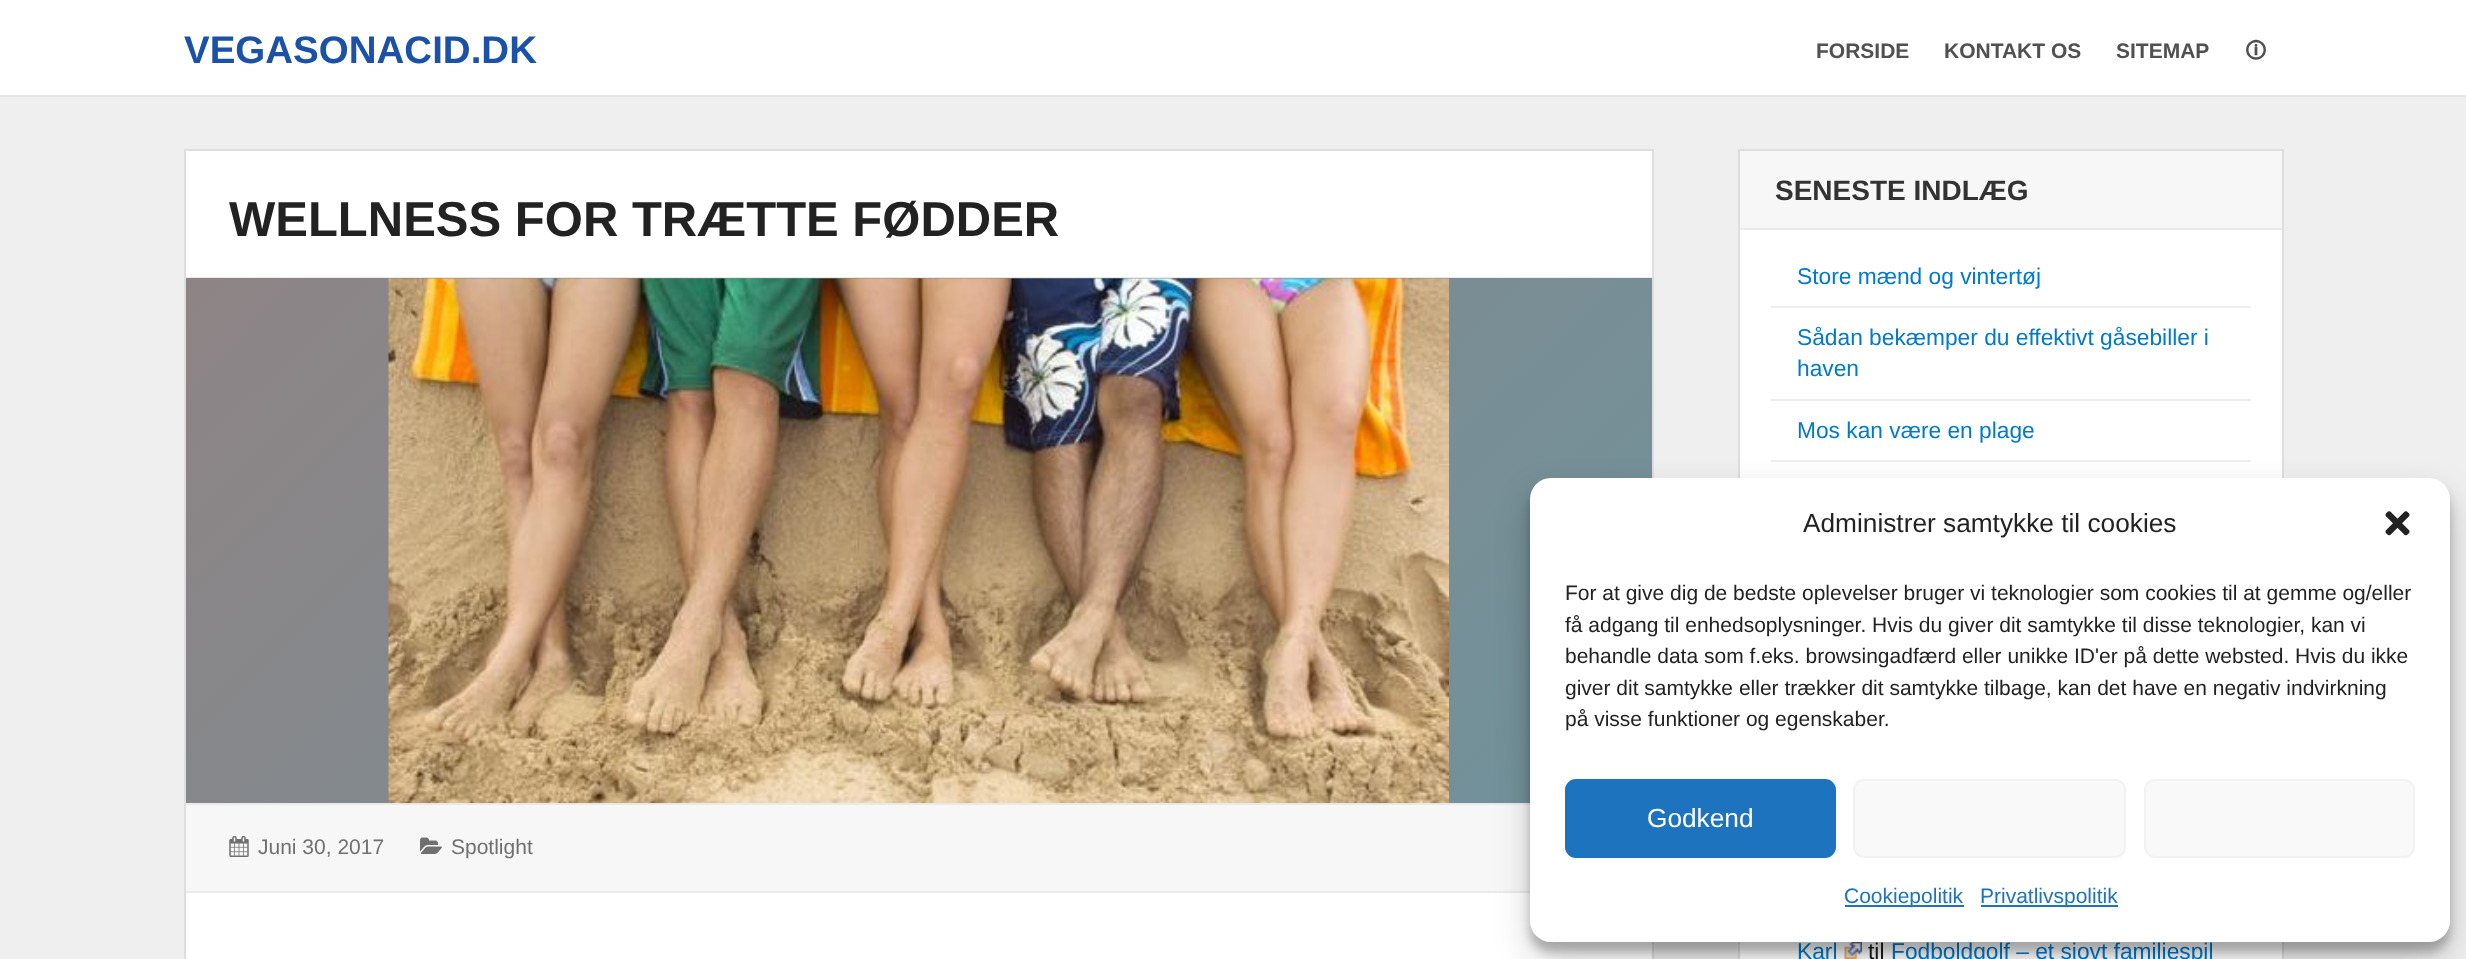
<svg xmlns="http://www.w3.org/2000/svg" width="2466" height="959" viewBox="0 0 2466 959">
  <defs>
    <linearGradient id="g1" gradientUnits="userSpaceOnUse" x1="421" y1="43" x2="1417" y2="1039"><stop offset="0" stop-color="rgb(142,132,133)"/><stop offset="1" stop-color="rgb(112,146,156)"/></linearGradient>
  </defs>
  <rect width="100%" height="100%" fill="rgb(239,239,239)"/>
  <rect x="0" y="0" width="2466" height="95" fill="rgb(255,255,255)"/>
  <rect x="0" y="95" width="2466" height="2" fill="rgb(229,229,229)"/>
  <text x="184" y="63" font-family="Liberation Sans" font-size="38.5" font-weight="bold" fill="rgb(27,82,167)">VEGASONACID.DK</text>
  <g font-family="Liberation Sans" font-size="21" font-weight="bold" fill="rgb(80,80,80)">
    <text x="1816" y="58">FORSIDE</text>
    <text x="1944" y="58">KONTAKT OS</text>
    <text x="2116" y="58">SITEMAP</text>
  </g>
  <text x="2245" y="58" font-family="'Noto Sans Symbols 2'" font-size="21" font-weight="bold" fill="rgb(80,80,80)">🛈</text>
  <rect x="185" y="150" width="1468" height="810" fill="rgb(255,255,255)" stroke="rgb(222,222,222)" stroke-width="2"/>
  <rect x="186" y="277" width="1466" height="1" fill="rgb(234,234,234)"/>
  <text x="229" y="236" font-family="Liberation Sans" font-size="49" font-weight="bold" fill="rgb(34,34,34)">WELLNESS FOR TRÆTTE FØDDER</text>
  <rect x="186" y="278" width="1466" height="525" fill="url(#g1)"/>
  <rect x="186" y="803" width="1344" height="2" fill="rgb(234,234,234)"/>
  <image x="388" y="278" width="1061" height="526" href="pic1.png"/>
  <rect x="186" y="805" width="1344" height="86" fill="rgb(247,247,247)"/>
  <rect x="186" y="891" width="1344" height="2" fill="rgb(234,234,234)"/>
  <image x="229" y="836" width="20" height="21" href="pic2.png"/>
  <text x="258" y="854" font-family="Liberation Sans" font-size="21" fill="rgb(112,112,112)">Juni 30, 2017</text>
  <image x="420" y="837" width="22" height="17" href="pic3.png"/>
  <text x="451" y="854" font-family="Liberation Sans" font-size="21" fill="rgb(112,112,112)">Spotlight</text>
  <rect x="1740" y="230" width="542" height="248" fill="rgb(255,255,255)"/>
  <rect x="1739" y="150" width="544" height="528" fill="none" stroke="rgb(222,222,222)" stroke-width="2"/>
  <rect x="1740" y="151" width="542" height="77" fill="rgb(247,247,247)"/>
  <rect x="1740" y="228" width="542" height="2" fill="rgb(234,234,234)"/>
  <text x="1775" y="200" font-family="Liberation Sans" font-size="28" font-weight="bold" fill="rgb(51,51,51)">SENESTE INDLÆG</text>
  <rect x="1771" y="306" width="480" height="2" fill="rgb(238,238,238)"/>
  <text x="1797" y="284" font-family="Liberation Sans" font-size="22.75" fill="rgb(0,122,204)">Store mænd og vintertøj</text>
  <rect x="1771" y="399" width="480" height="2" fill="rgb(238,238,238)"/>
  <g font-family="Liberation Sans" font-size="22.75" fill="rgb(0,122,204)">
    <text>
      <tspan x="1797" y="345">Sådan bekæmper du effektivt gåsebiller i</tspan>
      <tspan x="1797" y="376">haven</tspan>
    </text>
  </g>
  <rect x="1771" y="460" width="480" height="2" fill="rgb(238,238,238)"/>
  <text x="1797" y="438" font-family="Liberation Sans" font-size="22.75" fill="rgb(0,122,204)">Mos kan være en plage</text>
  <rect x="1740" y="942" width="542" height="17" fill="rgb(255,255,255)"/>
  <rect x="1739" y="733" width="544" height="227" fill="none" stroke="rgb(222,222,222)" stroke-width="2"/>
  <text x="1797" y="959" font-family="Liberation Sans" font-size="22.75" fill="rgb(0,122,204)">Karl</text>
  <image x="1844" y="942" width="18" height="17" href="pic4.png"/>
  <text x="1868" y="959" font-family="Liberation Sans" font-size="22.75" fill="rgb(26,26,26)">til</text>
  <text x="1891" y="959" font-family="Liberation Sans" font-size="22.75" fill="rgb(0,122,204)">Fodboldgolf – et sjovt familiespil</text>
  <rect x="1530" y="488" width="920" height="464" rx="21" fill="rgba(0,0,0,0.23)" filter="blur(5px)"/>
  <rect x="1530" y="495" width="920" height="464" rx="21" fill="rgba(0,0,0,0.19)" filter="blur(17.5px)"/>
  <rect x="1530" y="478" width="920" height="464" rx="21" fill="rgb(255,255,255)"/>
  <text x="1803" y="532" font-family="Liberation Sans" font-size="26.25" fill="rgb(34,34,34)">Administrer samtykke til cookies</text>
  <image x="2385" y="511" width="25" height="25" href="pic5.png"/>
  <g font-family="Liberation Sans" font-size="21" fill="rgb(34,34,34)">
    <text>
      <tspan x="1565" y="600">For at give dig de bedste oplevelser bruger vi teknologier som cookies til at gemme og/eller</tspan>
      <tspan x="1565" y="632">få adgang til enhedsoplysninger. Hvis du giver dit samtykke til disse teknologier, kan vi</tspan>
      <tspan x="1565" y="663">behandle data som f.eks. browsingadfærd eller unikke ID'er på dette websted. Hvis du ikke</tspan>
      <tspan x="1565" y="695">giver dit samtykke eller trækker dit samtykke tilbage, kan det have en negativ indvirkning</tspan>
      <tspan x="1565" y="726">på visse funktioner og egenskaber.</tspan>
    </text>
  </g>
  <rect x="1566" y="780" width="269" height="77" rx="10" fill="rgb(30,115,190)" stroke="rgb(30,115,190)" stroke-width="2"/>
  <text x="1647" y="827" font-family="Liberation Sans" font-size="26.25" fill="rgb(255,255,255)">Godkend</text>
  <rect x="1854" y="780" width="271" height="77" rx="10" fill="rgb(249,249,249)" stroke="rgb(242,242,242)" stroke-width="2"/>
  <rect x="2145" y="780" width="269" height="77" rx="10" fill="rgb(249,249,249)" stroke="rgb(242,242,242)" stroke-width="2"/>
  <rect x="1845" y="905" width="119" height="2" fill="rgb(30,115,190)"/>
  <text x="1844" y="903" font-family="Liberation Sans" font-size="21" fill="rgb(30,115,190)">Cookiepolitik</text>
  <rect x="1981" y="905" width="137" height="2" fill="rgb(30,115,190)"/>
  <text x="1980" y="903" font-family="Liberation Sans" font-size="21" fill="rgb(30,115,190)">Privatlivspolitik</text>
</svg>
